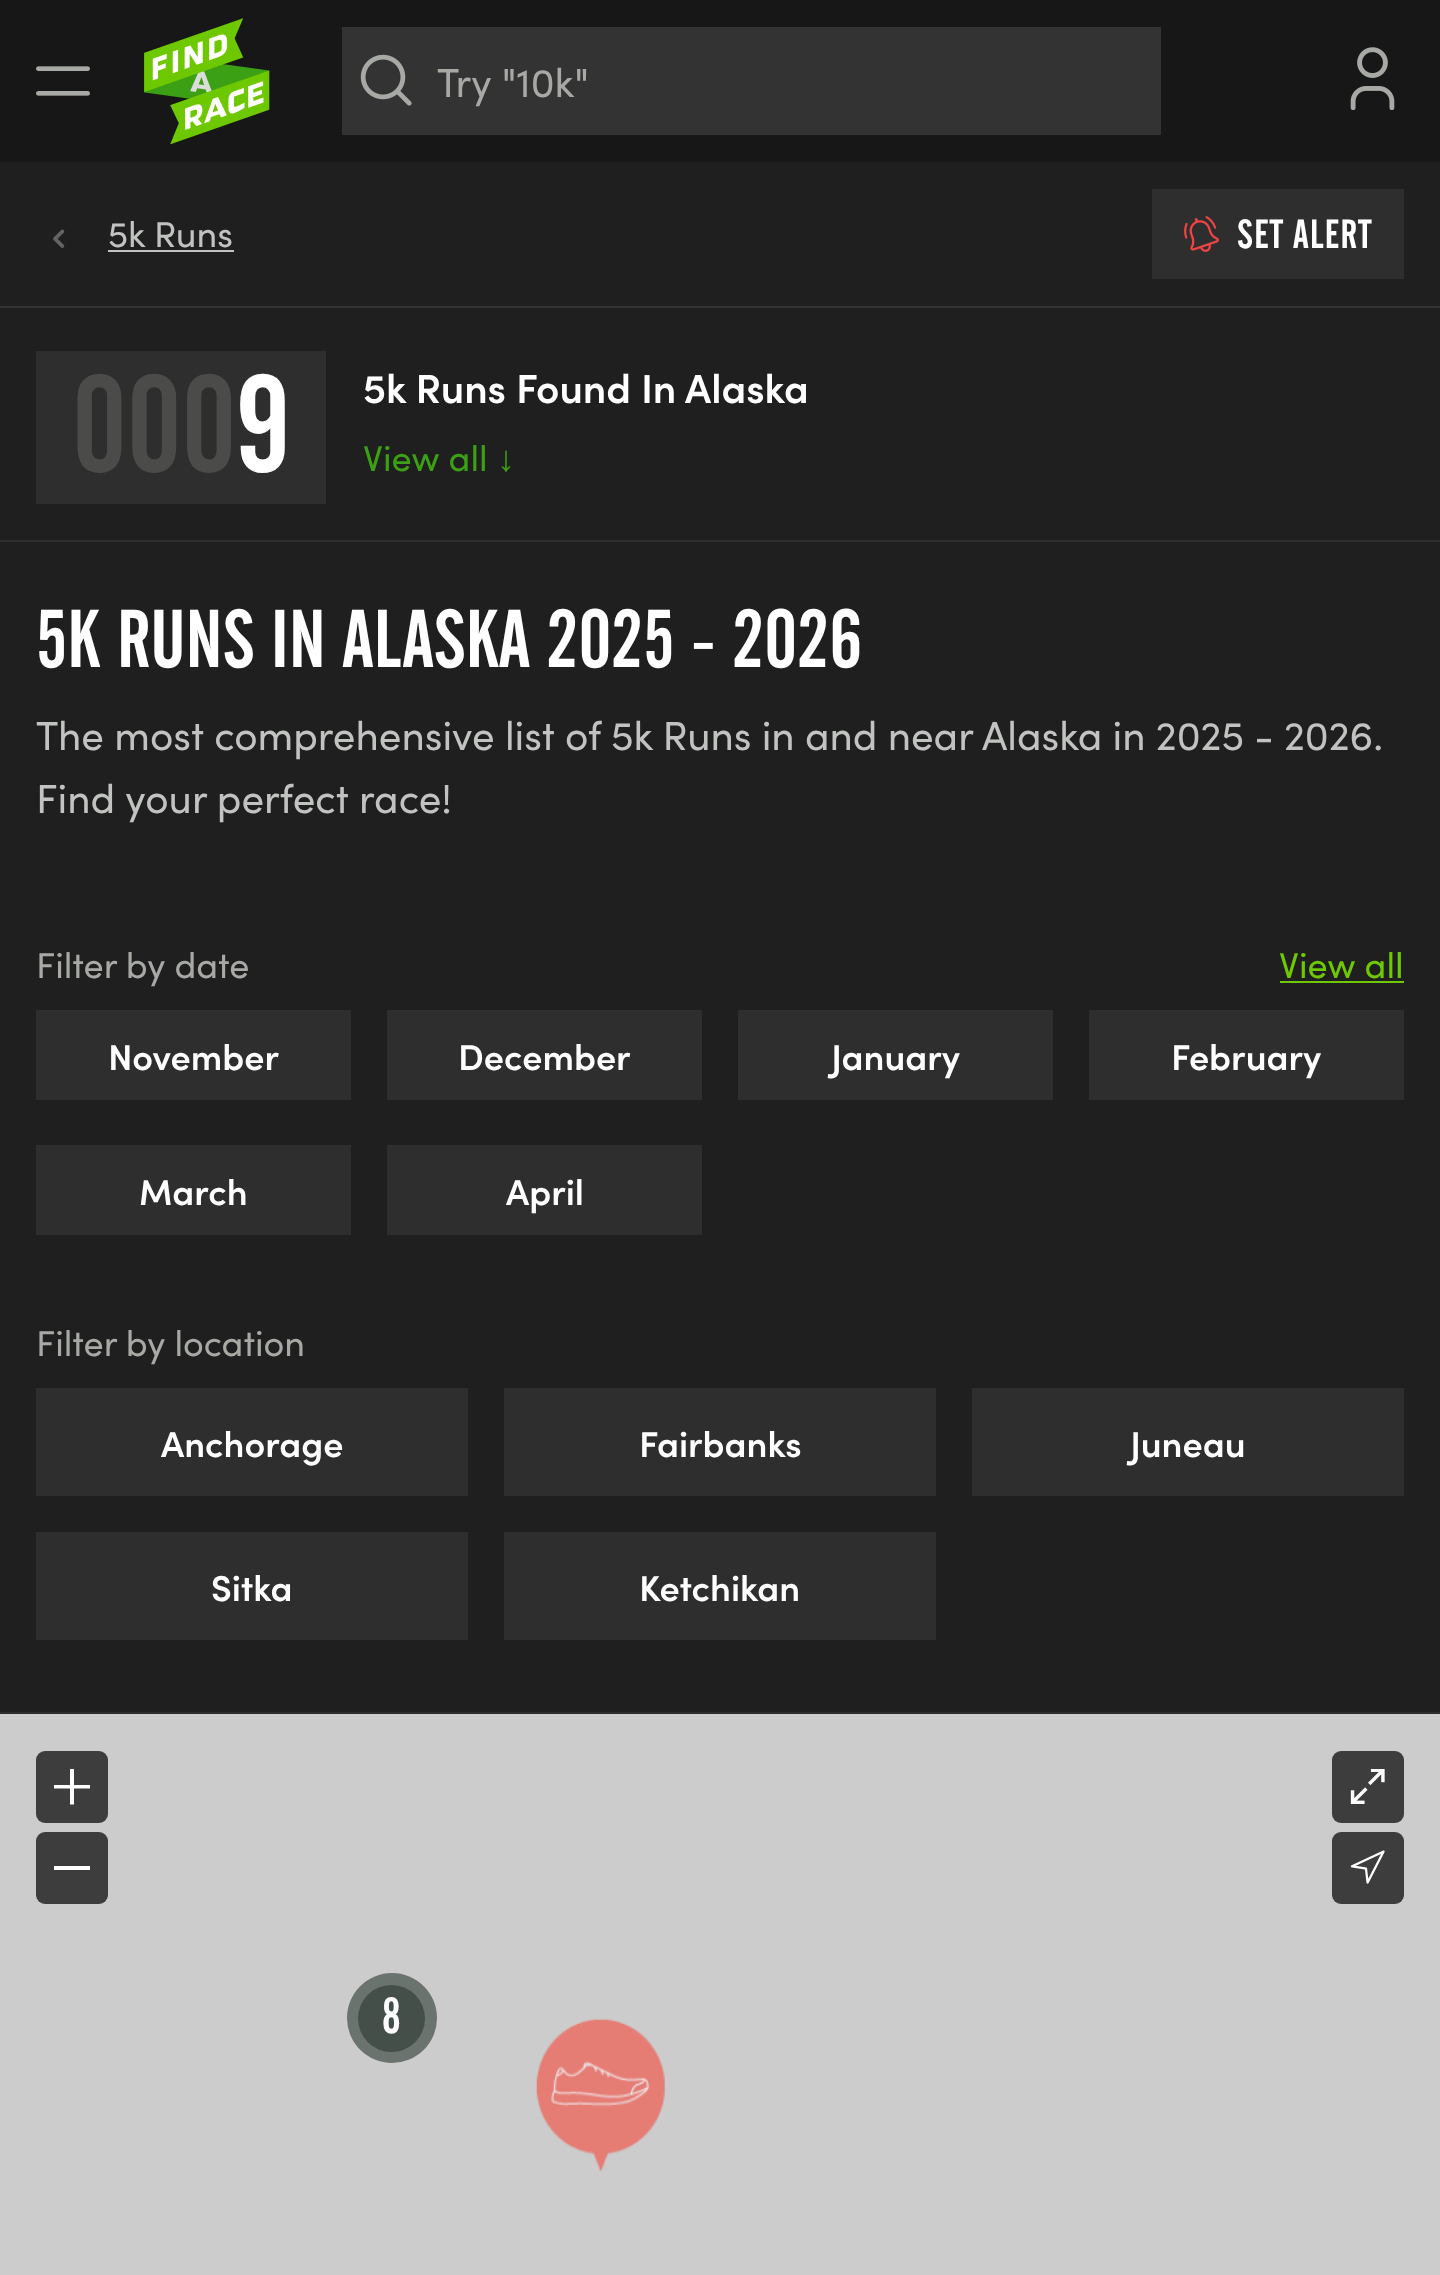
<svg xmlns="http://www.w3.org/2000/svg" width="1440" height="2275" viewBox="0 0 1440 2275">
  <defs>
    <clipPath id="clip1"><rect x="54" y="1769" width="36" height="36"/></clipPath>
  </defs>
  <rect width="100%" height="100%" fill="rgb(30,31,30)"/>
  <rect x="0" y="0" width="1440" height="162" fill="rgb(23,23,23)"/>
  <image x="36" y="66" width="54" height="30" href="pic1.png"/>
  <image x="144" y="18" width="126" height="127" href="pic2.png"/>
  <rect x="342" y="27" width="819" height="108" fill="rgb(50,51,50)"/>
  <image x="360" y="54" width="52" height="52" href="pic3.png"/>
  <text x="437" y="97" font-family="Sofia" font-size="40.5" fill="rgb(167,169,165)">Try "10k"</text>
  <image x="1350" y="47" width="45" height="63" href="pic4.png"/>
  <image x="53" y="229" width="12" height="19" href="pic5.png"/>
  <text x="108" y="247" font-family="Sofia" font-size="36" fill="rgb(193,195,192)">5k Runs</text>
  <rect x="108" y="250" width="126" height="2" fill="rgb(193,195,192)"/>
  <rect x="1152" y="189" width="252" height="90" fill="rgb(45,46,45)"/>
  <image x="1184" y="216" width="35" height="36" href="pic6.png"/>
  <text x="1237" y="248" font-family="'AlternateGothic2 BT'" font-size="40.5" letter-spacing="1" fill="rgb(255,255,255)">SET ALERT</text>
  <rect x="0" y="306" width="1440" height="2" fill="rgb(50,51,50)"/>
  <rect x="0" y="540" width="1440" height="2" fill="rgb(45,46,45)"/>
  <rect x="36" y="351" width="290" height="153" fill="rgb(45,46,45)"/>
  <text x="72" y="471" font-family="'AlternateGothic2 BT'" font-size="135" fill="rgb(75,76,74)">000</text>
  <text x="236" y="471" font-family="'AlternateGothic2 BT'" font-size="135" fill="rgb(255,255,255)">9</text>
  <text x="363" y="403" font-family="Sofia" font-size="40.5" font-weight="600" fill="rgb(255,255,255)">5k Runs Found In Alaska</text>
  <text x="363" y="471" font-family="Sofia" font-size="36" fill="rgb(60,160,20)">View all</text>
  <text x="497" y="471" font-family="Liberation Sans" font-size="36" fill="rgb(60,160,20)">↓</text>
  <rect x="0" y="1712" width="1440" height="2" fill="rgb(45,46,45)"/>
  <text x="36" y="667" font-family="'AlternateGothic2 BT'" font-size="81" fill="rgb(255,255,255)">5K RUNS IN ALASKA 2025 - 2026</text>
  <g font-family="Sofia" font-size="40.5" fill="rgb(193,195,192)">
    <text>
      <tspan x="36" y="750">The most comprehensive list of 5k Runs in and near Alaska in 2025 - 2026.</tspan>
      <tspan x="36" y="813">Find your perfect race!</tspan>
    </text>
  </g>
  <text x="36" y="978" font-family="Sofia" font-size="36" fill="rgb(167,169,165)">Filter by date</text>
  <text x="1279" y="978" font-family="Sofia" font-size="36" fill="rgb(110,200,2)">View all</text>
  <rect x="1280" y="981" width="124" height="2" fill="rgb(110,200,2)"/>
  <rect x="36" y="1010" width="315" height="90" fill="rgb(45,46,45)"/>
  <text x="108" y="1070" font-family="Sofia" font-size="36" font-weight="600" fill="rgb(255,255,255)">November</text>
  <rect x="387" y="1010" width="315" height="90" fill="rgb(45,46,45)"/>
  <text x="458" y="1070" font-family="Sofia" font-size="36" font-weight="600" fill="rgb(255,255,255)">December</text>
  <rect x="738" y="1010" width="315" height="90" fill="rgb(45,46,45)"/>
  <text x="831" y="1070" font-family="Sofia" font-size="36" font-weight="600" fill="rgb(255,255,255)">January</text>
  <rect x="1089" y="1010" width="315" height="90" fill="rgb(45,46,45)"/>
  <text x="1171" y="1070" font-family="Sofia" font-size="36" font-weight="600" fill="rgb(255,255,255)">February</text>
  <rect x="36" y="1145" width="315" height="90" fill="rgb(45,46,45)"/>
  <text x="139" y="1205" font-family="Sofia" font-size="36" font-weight="600" fill="rgb(255,255,255)">March</text>
  <rect x="387" y="1145" width="315" height="90" fill="rgb(45,46,45)"/>
  <text x="506" y="1205" font-family="Sofia" font-size="36" font-weight="600" fill="rgb(255,255,255)">April</text>
  <text x="36" y="1356" font-family="Sofia" font-size="36" fill="rgb(167,169,165)">Filter by location</text>
  <rect x="36" y="1388" width="432" height="108" fill="rgb(45,46,45)"/>
  <text x="161" y="1457" font-family="Sofia" font-size="36" font-weight="600" fill="rgb(255,255,255)">Anchorage</text>
  <rect x="504" y="1388" width="432" height="108" fill="rgb(45,46,45)"/>
  <text x="639" y="1457" font-family="Sofia" font-size="36" font-weight="600" fill="rgb(255,255,255)">Fairbanks</text>
  <rect x="972" y="1388" width="432" height="108" fill="rgb(45,46,45)"/>
  <text x="1130" y="1457" font-family="Sofia" font-size="36" font-weight="600" fill="rgb(255,255,255)">Juneau</text>
  <rect x="36" y="1532" width="432" height="108" fill="rgb(45,46,45)"/>
  <text x="211" y="1601" font-family="Sofia" font-size="36" font-weight="600" fill="rgb(255,255,255)">Sitka</text>
  <rect x="504" y="1532" width="432" height="108" fill="rgb(45,46,45)"/>
  <text x="639" y="1601" font-family="Sofia" font-size="36" font-weight="600" fill="rgb(255,255,255)">Ketchikan</text>
  <rect x="0" y="1714" width="576" height="561" fill="rgb(204,204,204)"/>
  <rect x="36" y="1751" width="72" height="72" rx="9" fill="rgb(61,61,61)"/>
  <g clip-path="url(#clip1)">
    <path d="M74 1785H90V1788.5H74V1804.5H70V1788.5H54V1785H70V1768.5H74Z" fill="rgb(255,255,255)"/>
  </g>
  <rect x="36" y="1832" width="72" height="72" rx="9" fill="rgb(61,61,61)"/>
  <rect x="54" y="1866" width="36" height="4" fill="rgb(255,255,255)"/>
  <rect x="1152" y="1714" width="288" height="561" fill="rgb(204,204,204)"/>
  <rect x="1332" y="1751" width="72" height="72" rx="9" fill="rgb(61,61,61)"/>
  <image x="1350" y="1769" width="35" height="35" href="pic7.png"/>
  <rect x="1332" y="1832" width="72" height="72" rx="9" fill="rgb(61,61,61)"/>
  <image x="1350" y="1850" width="35" height="34" href="pic8.png"/>
  <rect x="576" y="1714" width="576" height="561" fill="rgb(204,204,204)"/>
  <circle cx="392" cy="2018" r="45" fill="rgb(107,115,111)"/>
  <circle cx="391.5" cy="2018.5" r="33.5" fill="rgb(69,79,74)"/>
  <text x="382" y="2033" font-family="'AlternateGothic2 BT'" font-size="50" fill="rgb(255,255,255)">8</text>
  <image x="536" y="2018" width="129" height="154" href="pic9.png"/>
</svg>
